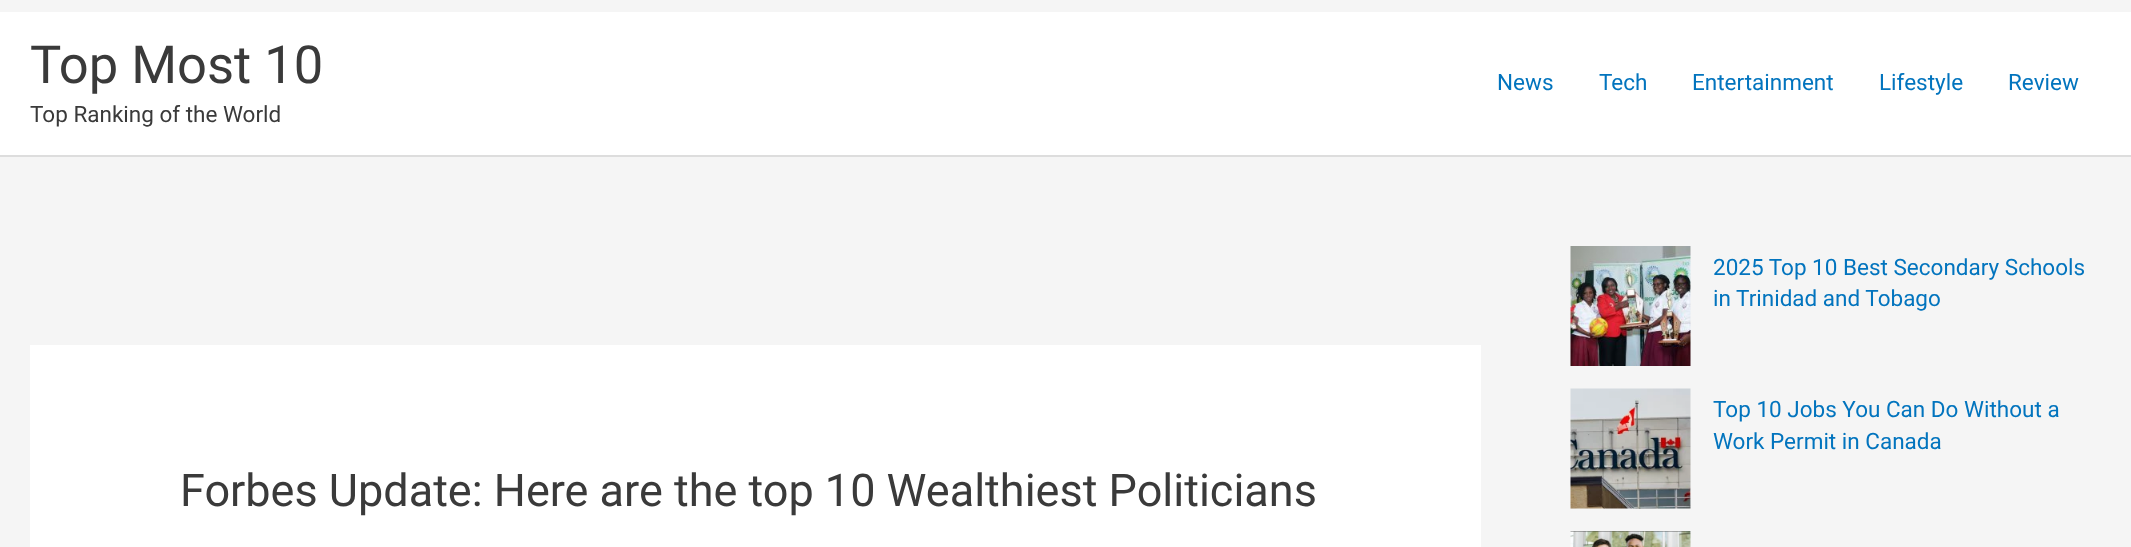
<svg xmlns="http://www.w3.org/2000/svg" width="2131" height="547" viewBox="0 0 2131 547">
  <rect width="100%" height="100%" fill="rgb(245,245,245)"/>
  <rect x="0" y="12" width="2131" height="143" fill="rgb(255,255,255)"/>
  <rect x="0" y="155" width="2131" height="2" fill="rgb(221,221,221)"/>
  <text x="30" y="83" font-family="Roboto" font-size="52.5" fill="rgb(58,58,58)">Top Most 10</text>
  <text x="30" y="122" font-family="Roboto" font-size="22.5" fill="rgb(58,58,58)">Top Ranking of the World</text>
  <g font-family="Roboto" font-size="22.5" fill="rgb(2,116,190)">
    <text x="1497" y="90">News</text>
    <text x="1599" y="90">Tech</text>
    <text x="1692" y="90">Entertainment</text>
    <text x="1879" y="90">Lifestyle</text>
    <text x="2008" y="90">Review</text>
  </g>
  <image x="1570" y="246" width="121" height="120" href="pic1.png"/>
  <g font-family="Roboto" font-size="22.5" fill="rgb(2,116,190)">
    <text>
      <tspan x="1713" y="275">2025 Top 10 Best Secondary Schools</tspan>
      <tspan x="1713" y="306">in Trinidad and Tobago</tspan>
    </text>
  </g>
  <image x="1570" y="388" width="121" height="121" href="pic2.png"/>
  <g font-family="Roboto" font-size="22.5" fill="rgb(2,116,190)">
    <text>
      <tspan x="1713" y="417">Top 10 Jobs You Can Do Without a</tspan>
      <tspan x="1713" y="449">Work Permit in Canada</tspan>
    </text>
  </g>
  <image x="1570" y="531" width="121" height="16" href="pic3.png"/>
  <rect x="30" y="345" width="1451" height="202" fill="rgb(255,255,255)"/>
  <text x="180" y="506" font-family="Roboto" font-size="45" fill="rgb(58,58,58)">Forbes Update: Here are the top 10 Wealthiest Politicians</text>
</svg>
